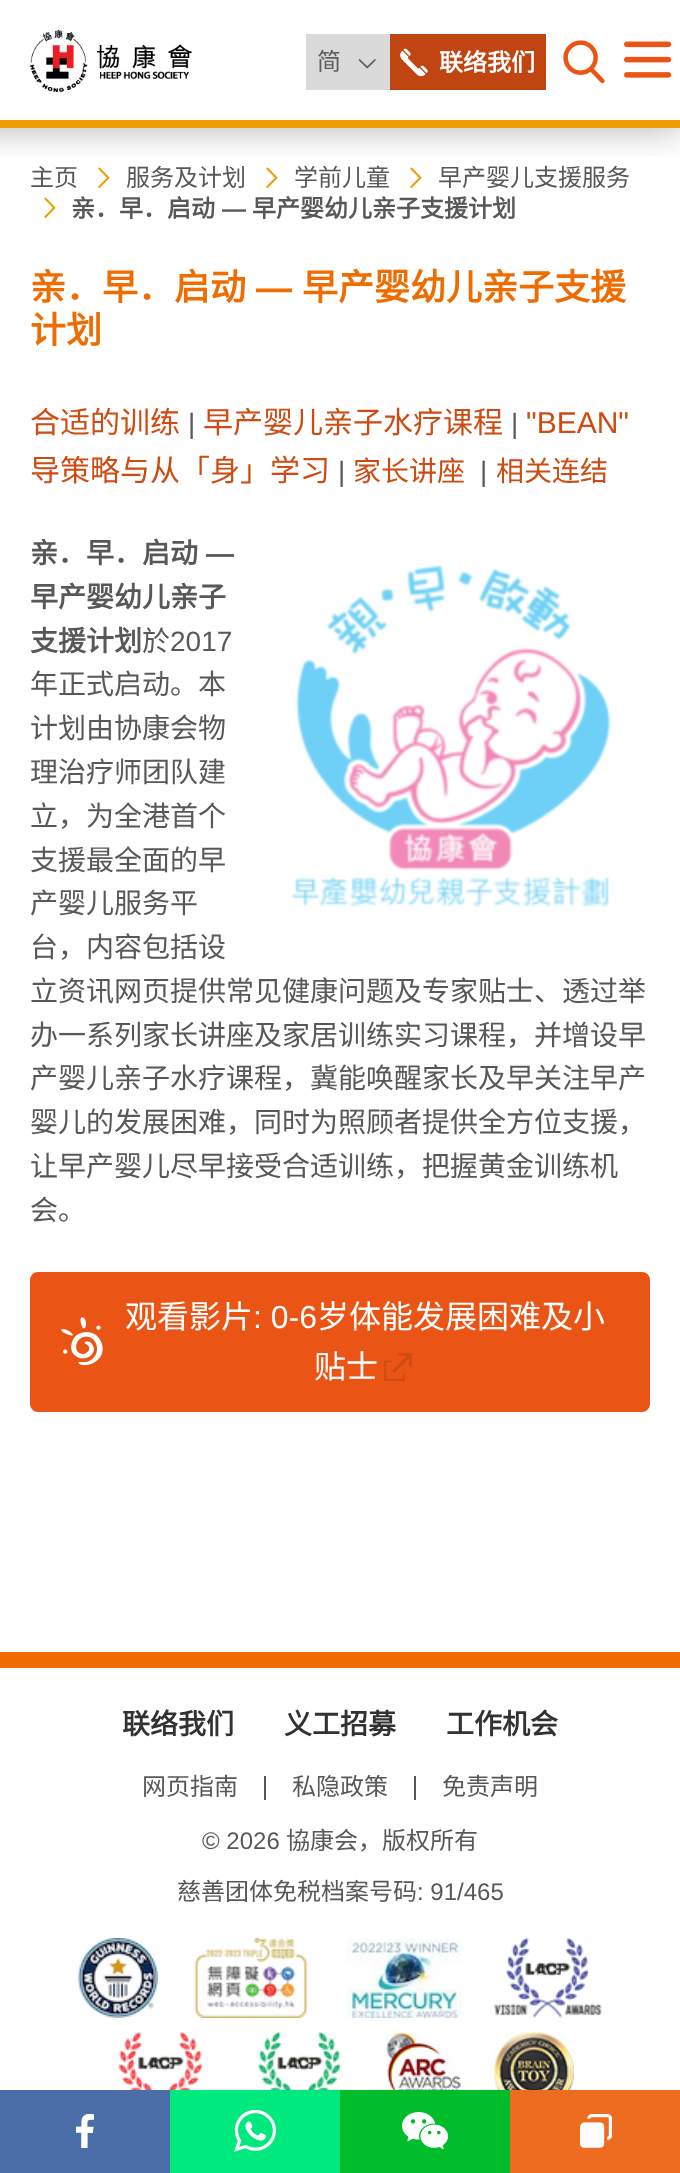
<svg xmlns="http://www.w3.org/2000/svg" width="680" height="2173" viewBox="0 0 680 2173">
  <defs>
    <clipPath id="clip1"><rect x="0" y="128" width="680" height="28"/></clipPath>
  </defs>
  <rect width="100%" height="100%" fill="rgb(255,255,255)"/>
  <image x="98" y="167" width="12" height="22" href="pic6.png"/>
  <image x="266" y="167" width="12" height="22" href="pic6.png"/>
  <image x="410" y="167" width="12" height="22" href="pic6.png"/>
  <g clip-path="url(#clip1)">
    <rect x="-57" y="-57" width="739" height="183" fill="rgba(0,0,0,0.35)" filter="blur(19px)"/>
  </g>
  <rect x="0" y="120" width="680" height="8" fill="rgb(239,157,0)"/>
  <image x="30" y="30" width="162" height="62" href="pic1.png"/>
  <rect x="306" y="34" width="84" height="56" fill="rgb(218,218,218)"/>
  <text x="317" y="70" font-family="Noto Sans CJK SC" font-size="24" fill="rgb(95,93,93)">简</text>
  <image x="358" y="59" width="18" height="10" href="pic2.png"/>
  <rect x="390" y="34" width="156" height="56" fill="rgb(192,69,17)"/>
  <image x="400" y="48" width="28" height="29" href="pic3.png"/>
  <text x="439" y="71" font-family="Noto Sans CJK SC" font-size="24" font-weight="bold" fill="rgb(255,255,255)">联络我们</text>
  <image x="563" y="40" width="42" height="44" href="pic4.png"/>
  <image x="624" y="41" width="48" height="37" href="pic5.png"/>
  <g font-family="Noto Sans CJK SC" font-size="24" fill="rgb(88,88,88)">
    <text x="30" y="186">主页</text>
    <text x="126" y="186">服务及计划</text>
    <text x="294" y="186">学前儿童</text>
    <text x="438" y="186">早产婴儿支援服务</text>
  </g>
  <image x="44" y="197" width="12" height="22" href="pic6.png"/>
  <text x="71" y="217" font-family="Noto Sans CJK SC" font-size="24" font-weight="bold" fill="rgb(88,88,88)">亲．早．启动</text>
  <text x="222" y="217" font-family="Liberation Sans" font-size="24" font-weight="bold" fill="rgb(88,88,88)">―</text>
  <text x="252" y="217" font-family="Noto Sans CJK SC" font-size="24" font-weight="bold" fill="rgb(88,88,88)">早产婴幼儿亲子支援计划</text>
  <text x="30" y="300" font-family="Noto Sans CJK SC" font-size="36" font-weight="bold" fill="rgb(239,108,0)">亲．早．启动</text>
  <text x="256" y="300" font-family="Liberation Sans" font-size="36" font-weight="bold" fill="rgb(239,108,0)">―</text>
  <g font-family="Noto Sans CJK SC" font-size="36" font-weight="bold" fill="rgb(239,108,0)">
    <text x="302" y="300">早产婴幼儿亲子支援</text>
    <text x="30" y="343">计划</text>
  </g>
  <text x="30" y="433" font-family="Noto Sans CJK SC" font-size="30" fill="rgb(206,75,18)">合适的训练</text>
  <text x="188" y="433" font-family="Liberation Sans" font-size="28" fill="rgb(88,88,88)">|</text>
  <text x="203" y="433" font-family="Noto Sans CJK SC" font-size="30" fill="rgb(206,75,18)">早产婴儿亲子水疗课程</text>
  <text x="511" y="433" font-family="Liberation Sans" font-size="28" fill="rgb(88,88,88)">|</text>
  <text x="526" y="433" font-family="Liberation Sans" font-size="30" fill="rgb(206,75,18)">"BEAN"</text>
  <text x="30" y="481" font-family="Noto Sans CJK SC" font-size="30" fill="rgb(206,75,18)">导策略与从「身」学习</text>
  <text x="338" y="481" font-family="Liberation Sans" font-size="28" fill="rgb(88,88,88)">|</text>
  <text x="353" y="481" font-family="Noto Sans CJK SC" font-size="28" fill="rgb(206,75,18)">家长讲座</text>
  <text x="480" y="481" font-family="Liberation Sans" font-size="28" fill="rgb(88,88,88)">|</text>
  <text x="496" y="481" font-family="Noto Sans CJK SC" font-size="28" fill="rgb(206,75,18)">相关连结</text>
  <text x="30" y="563" font-family="Noto Sans CJK SC" font-size="28" font-weight="bold" fill="rgb(88,88,88)">亲．早．启动</text>
  <text x="206" y="563" font-family="Liberation Sans" font-size="28" font-weight="bold" fill="rgb(88,88,88)">―</text>
  <g font-family="Noto Sans CJK SC" font-size="28" font-weight="bold" fill="rgb(88,88,88)">
    <text>
      <tspan x="30" y="607">早产婴幼儿亲子</tspan>
      <tspan x="30" y="651">支援计划</tspan>
    </text>
  </g>
  <text x="142" y="651" font-family="Noto Sans CJK SC" font-size="28" fill="rgb(88,88,88)">於</text>
  <text x="170" y="651" font-family="Liberation Sans" font-size="28" fill="rgb(88,88,88)">2017</text>
  <g font-family="Noto Sans CJK SC" font-size="28" fill="rgb(88,88,88)">
    <text>
      <tspan x="30" y="694">年正式启动。本</tspan>
      <tspan x="30" y="738">计划由协康会物</tspan>
      <tspan x="30" y="782">理治疗师团队建</tspan>
      <tspan x="30" y="826">立，为全港首个</tspan>
      <tspan x="30" y="870">支援最全面的早</tspan>
      <tspan x="30" y="913">产婴儿服务平</tspan>
      <tspan x="30" y="957">台，内容包括设</tspan>
      <tspan x="30" y="1001">立资讯网页提供常见健康问题及专家贴士、透过举</tspan>
      <tspan x="30" y="1045">办一系列家长讲座及家居训练实习课程，并增设</tspan>
    </text>
    <text x="618" y="1045">早</text>
    <text x="30" y="1088">产婴儿亲子水疗课程，冀能唤醒家长及早关注</text>
    <text x="590" y="1088">早产</text>
    <text>
      <tspan x="30" y="1132">婴儿的发展困难，同时为照顾者提供全方位支援，</tspan>
      <tspan x="30" y="1176">让早产婴儿尽早接受合适训练，把握黄金训练机</tspan>
      <tspan x="30" y="1220">会。</tspan>
    </text>
  </g>
  <rect x="32" y="1274" width="616" height="136" rx="6" fill="rgb(234,85,21)" stroke="rgb(234,85,21)" stroke-width="4"/>
  <image x="61" y="1317" width="42" height="49" href="pic7.png"/>
  <text x="125" y="1328" font-family="Noto Sans CJK SC" font-size="32" fill="rgb(255,255,255)">观看影片</text>
  <text x="253" y="1328" font-family="Liberation Sans" font-size="32" fill="rgb(255,255,255)">: 0-6</text>
  <g font-family="Noto Sans CJK SC" font-size="32" fill="rgb(255,255,255)">
    <text x="317" y="1328">岁体能发展困难及小</text>
    <text x="314" y="1378">贴士</text>
  </g>
  <image x="384" y="1353" width="28" height="28" href="pic8.png"/>
  <image x="291" y="565" width="320" height="342" href="pic9.png"/>
  <rect x="0" y="1652" width="680" height="16" fill="rgb(239,108,0)"/>
  <g font-family="Noto Sans CJK SC" font-size="28" font-weight="bold" fill="rgb(50,50,50)">
    <text x="122" y="1734">联络我们</text>
    <text x="284" y="1734">义工招募</text>
    <text x="446" y="1734">工作机会</text>
  </g>
  <text x="142" y="1795" font-family="Noto Sans CJK SC" font-size="24" fill="rgb(88,88,88)">网页指南</text>
  <rect x="264" y="1776" width="2" height="24" fill="rgb(88,88,88)"/>
  <text x="292" y="1795" font-family="Noto Sans CJK SC" font-size="24" fill="rgb(88,88,88)">私隐政策</text>
  <rect x="414" y="1776" width="2" height="24" fill="rgb(88,88,88)"/>
  <text x="442" y="1795" font-family="Noto Sans CJK SC" font-size="24" fill="rgb(88,88,88)">免责声明</text>
  <text x="202" y="1849" font-family="Liberation Sans" font-size="24" fill="rgb(88,88,88)">© 2026</text>
  <g font-family="Noto Sans CJK SC" font-size="24" fill="rgb(88,88,88)">
    <text x="286" y="1849">協康会，版权所有</text>
    <text x="177" y="1900">慈善团体免税档案号码</text>
  </g>
  <text x="417" y="1900" font-family="Liberation Sans" font-size="24" fill="rgb(88,88,88)">: 91/465</text>
  <image x="78" y="1938" width="80" height="80" href="pic10.png"/>
  <image x="194" y="1938" width="114" height="80" href="pic11.png"/>
  <image x="346" y="1938" width="118" height="80" href="pic12.png"/>
  <image x="494" y="1938" width="108" height="80" href="pic13.png"/>
  <image x="118" y="2032" width="85" height="58" href="pic14.png"/>
  <image x="258" y="2032" width="84" height="58" href="pic15.png"/>
  <image x="386" y="2032" width="76" height="58" href="pic16.png"/>
  <image x="494" y="2032" width="80" height="58" href="pic17.png"/>
  <rect x="0" y="2090" width="170" height="83" fill="rgb(75,110,168)"/>
  <image x="76" y="2114" width="18" height="34" href="pic18.png"/>
  <rect x="170" y="2090" width="170" height="83" fill="rgb(0,233,127)"/>
  <image x="234" y="2110" width="42" height="42" href="pic19.png"/>
  <rect x="340" y="2090" width="170" height="83" fill="rgb(0,189,43)"/>
  <image x="402" y="2112" width="46" height="38" href="pic20.png"/>
  <rect x="510" y="2090" width="170" height="83" fill="rgb(238,108,31)"/>
  <image x="580" y="2114" width="32" height="34" href="pic21.png"/>
</svg>
